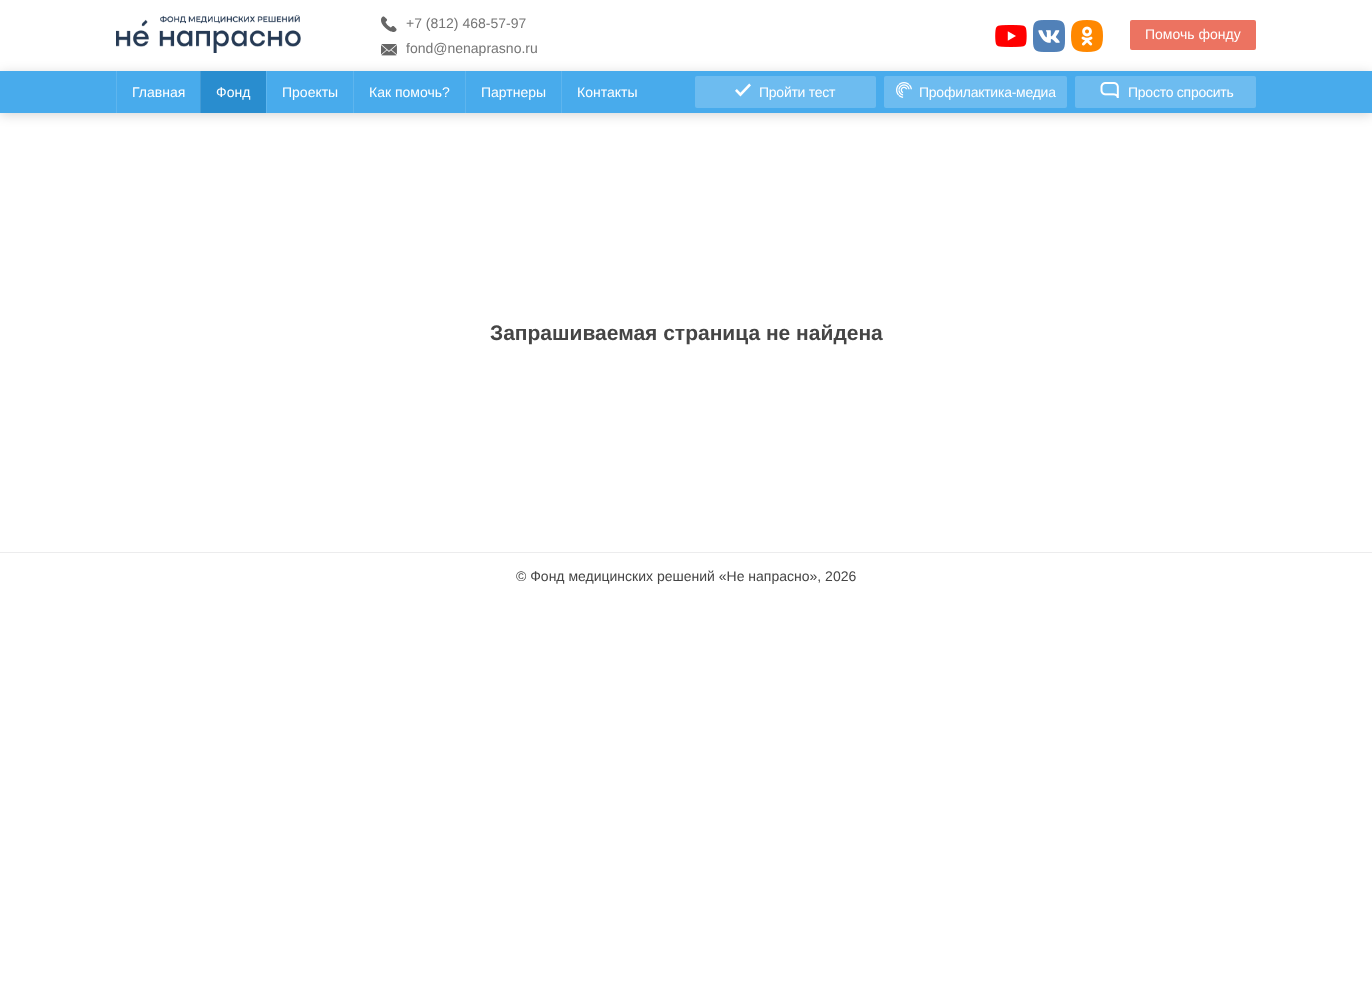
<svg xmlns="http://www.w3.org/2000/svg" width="1372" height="1004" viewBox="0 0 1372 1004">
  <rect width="100%" height="100%" fill="rgb(255,255,255)"/>
  <image x="116" y="15" width="185" height="38" href="pic1.png"/>
  <image x="381" y="16" width="16" height="16" href="pic2.png"/>
  <text x="406" y="28" font-family="Liberation Sans" font-size="14" fill="rgb(117,117,117)">+7 (812) 468-57-97</text>
  <rect x="0" y="73" width="1372" height="42" fill="rgba(0,0,0,0.16)" filter="blur(6px)"/>
  <image x="381" y="44" width="16" height="12" href="pic3.png"/>
  <text x="406" y="53" font-family="Liberation Sans" font-size="14" fill="rgb(117,117,117)">fond@nenaprasno.ru</text>
  <image x="995" y="25" width="32" height="22" href="pic4.png"/>
  <image x="1033" y="20" width="32" height="32" href="pic5.png"/>
  <image x="1071" y="20" width="32" height="32" href="pic6.png"/>
  <rect x="1130" y="20" width="126" height="30" rx="2" fill="rgb(236,115,97)"/>
  <text x="1145" y="39" font-family="Liberation Sans" font-size="14" fill="rgb(255,255,255)">Помочь фонду</text>
  <rect x="0" y="71" width="1372" height="42" fill="rgb(72,171,236)"/>
  <rect x="116" y="71" width="1" height="42" fill="rgb(94,181,238)"/>
  <text x="132" y="97" font-family="Liberation Sans" font-size="14" fill="rgb(255,255,255)">Главная</text>
  <rect x="201" y="71" width="65" height="42" fill="rgb(41,141,207)"/>
  <rect x="200" y="71" width="1" height="42" fill="rgb(67,155,213)"/>
  <text x="216" y="97" font-family="Liberation Sans" font-size="14" fill="rgb(255,255,255)">Фонд</text>
  <rect x="266" y="71" width="1" height="42" fill="rgb(94,181,238)"/>
  <text x="282" y="97" font-family="Liberation Sans" font-size="14" fill="rgb(255,255,255)">Проекты</text>
  <rect x="353" y="71" width="1" height="42" fill="rgb(94,181,238)"/>
  <text x="369" y="97" font-family="Liberation Sans" font-size="14" fill="rgb(255,255,255)">Как помочь?</text>
  <rect x="465" y="71" width="1" height="42" fill="rgb(94,181,238)"/>
  <text x="481" y="97" font-family="Liberation Sans" font-size="14" fill="rgb(255,255,255)">Партнеры</text>
  <rect x="561" y="71" width="1" height="42" fill="rgb(94,181,238)"/>
  <text x="577" y="97" font-family="Liberation Sans" font-size="14" fill="rgb(255,255,255)">Контакты</text>
  <rect x="695" y="76" width="181" height="32" rx="2" fill="rgb(109,188,240)"/>
  <image x="735" y="83" width="16" height="14" href="pic7.png"/>
  <text x="759" y="97" font-family="Liberation Sans" font-size="14" letter-spacing="-0.25" fill="rgb(255,255,255)">Пройти тест</text>
  <rect x="884" y="76" width="183" height="32" rx="2" fill="rgb(109,188,240)"/>
  <image x="896" y="82" width="16" height="16" href="pic8.png"/>
  <text x="919" y="97" font-family="Liberation Sans" font-size="14" letter-spacing="-0.25" fill="rgb(255,255,255)">Профилактика-медиа</text>
  <rect x="1075" y="76" width="181" height="32" rx="2" fill="rgb(109,188,240)"/>
  <image x="1100" y="82" width="19" height="16" href="pic9.png"/>
  <text x="1128" y="97" font-family="Liberation Sans" font-size="14" letter-spacing="-0.25" fill="rgb(255,255,255)">Просто спросить</text>
  <text x="490" y="340" font-family="Liberation Sans" font-size="21" font-weight="bold" fill="rgb(69,69,69)">Запрашиваемая страница не найдена</text>
  <rect x="0" y="552" width="1372" height="1" fill="rgb(236,236,237)"/>
  <text x="516" y="581" font-family="Liberation Sans" font-size="14" fill="rgb(69,69,69)">© Фонд медицинских решений «Не напрасно», 2026</text>
</svg>
